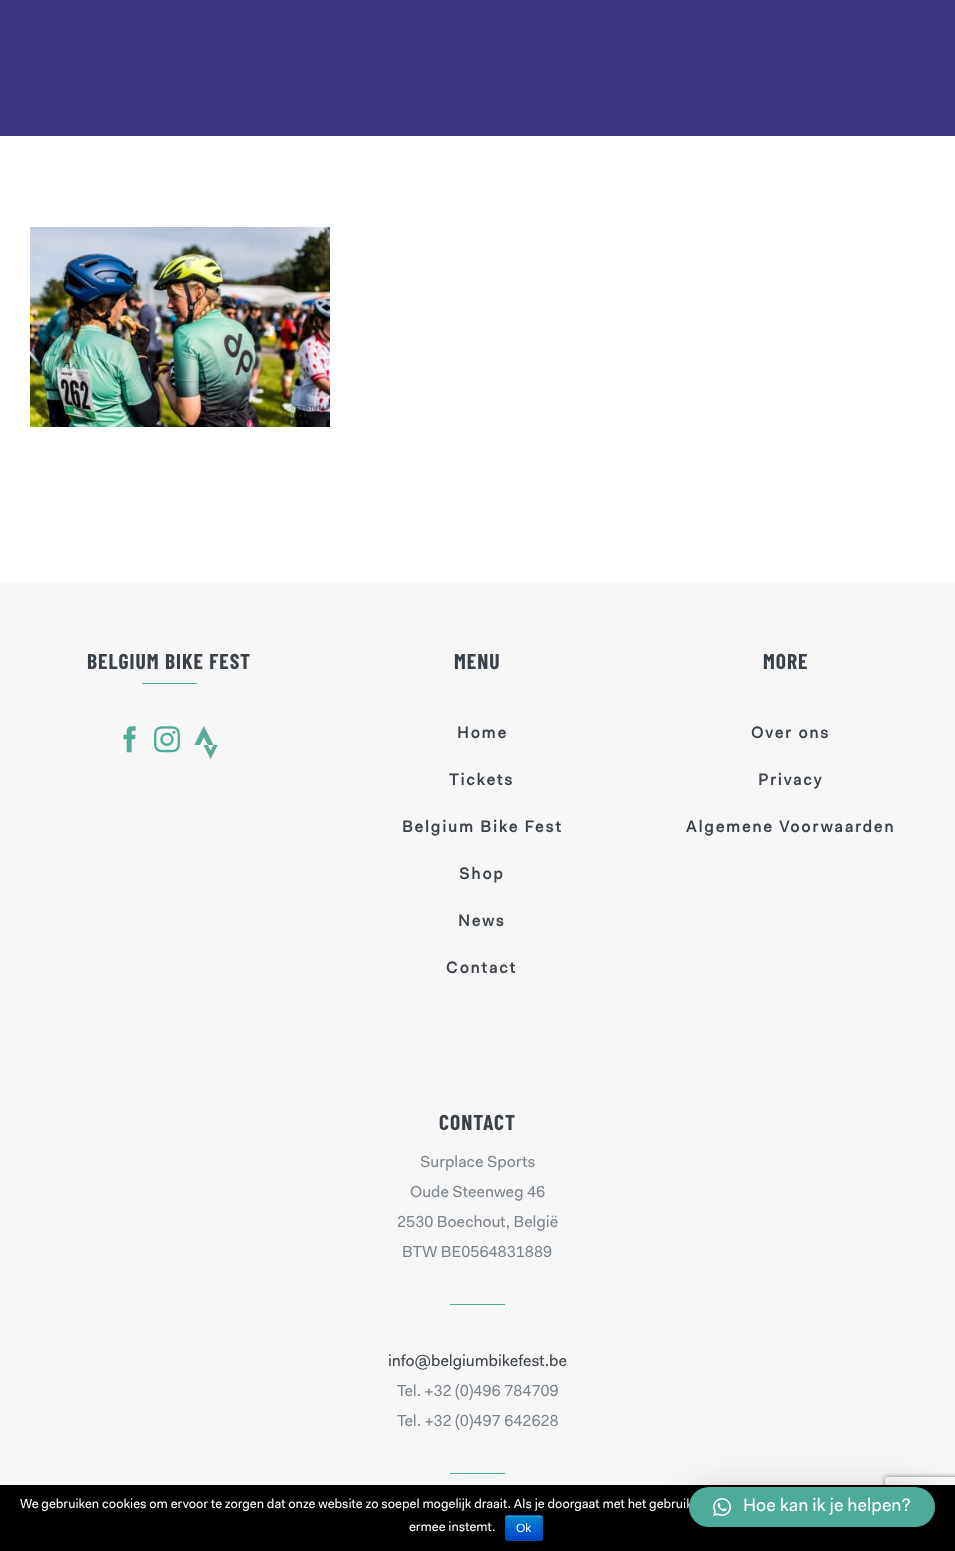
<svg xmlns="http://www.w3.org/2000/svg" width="955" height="1551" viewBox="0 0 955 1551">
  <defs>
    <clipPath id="clip1"><path d="M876 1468H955V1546H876ZM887 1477H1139C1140 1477 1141 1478 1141 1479V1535C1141 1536 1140 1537 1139 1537H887C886 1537 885 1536 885 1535V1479C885 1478 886 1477 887 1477Z" clip-rule="evenodd"/></clipPath>
    <clipPath id="clip2"><rect x="505" y="1515" width="38" height="26" rx="3"/></clipPath>
    <linearGradient id="g1" gradientUnits="userSpaceOnUse" x1="524" y1="1516" x2="524" y2="1540"><stop offset="0" stop-color="rgb(0,136,204)"/><stop offset="1" stop-color="rgb(0,68,204)"/></linearGradient>
  </defs>
  <rect width="100%" height="100%" fill="rgb(255,255,255)"/>
  <rect x="0" y="0" width="955" height="136" fill="rgb(60,53,130)"/>
  <image x="30" y="227" width="300" height="200" href="pic1.png"/>
  <rect x="0" y="582" width="955" height="903" fill="rgb(247,247,247)"/>
  <text x="87" y="669" font-family="Barlow Condensed" font-size="21.5" font-weight="bold" letter-spacing="1" fill="rgb(58,65,73)">BELGIUM BIKE FEST</text>
  <rect x="142" y="683" width="55" height="1" fill="rgb(77,171,153)"/>
  <image x="123" y="726" width="13" height="27" href="pic2.png"/>
  <image x="154" y="726" width="26" height="27" href="pic3.png"/>
  <image x="194" y="726" width="24" height="33" href="pic4.png"/>
  <text x="454" y="669" font-family="Barlow Condensed" font-size="21.5" font-weight="bold" letter-spacing="1" fill="rgb(58,65,73)">MENU</text>
  <g font-family="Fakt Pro" font-size="16" font-weight="bold" letter-spacing="2" fill="rgb(58,65,73)">
    <text x="457" y="738">Home</text>
    <text x="449" y="785">Tickets</text>
    <text x="402" y="832">Belgium Bike Fest</text>
    <text x="459" y="879">Shop</text>
    <text x="458" y="926">News</text>
    <text x="446" y="973">Contact</text>
  </g>
  <text x="763" y="669" font-family="Barlow Condensed" font-size="21.5" font-weight="bold" letter-spacing="1" fill="rgb(58,65,73)">MORE</text>
  <g font-family="Fakt Pro" font-size="16" font-weight="bold" letter-spacing="2" fill="rgb(58,65,73)">
    <text x="751" y="738">Over ons</text>
    <text x="758" y="785">Privacy</text>
    <text x="686" y="832">Algemene Voorwaarden</text>
  </g>
  <text x="439" y="1130" font-family="Barlow Condensed" font-size="21.5" font-weight="bold" letter-spacing="1" fill="rgb(58,65,73)">CONTACT</text>
  <g font-family="Fakt Pro" font-size="16" fill="rgb(123,131,139)">
    <text x="420" y="1167">Surplace Sports</text>
    <text x="410" y="1197">Oude Steenweg 46</text>
    <text x="397" y="1227">2530 Boechout, België</text>
    <text x="402" y="1257">BTW BE0564831889</text>
  </g>
  <rect x="450" y="1304" width="55" height="1" fill="rgb(77,171,153)"/>
  <text x="388" y="1366" font-family="Fakt Pro" font-size="16" fill="rgb(58,65,73)">info@belgiumbikefest.be</text>
  <g font-family="Fakt Pro" font-size="16" fill="rgb(123,131,139)">
    <text>
      <tspan x="397" y="1396">Tel. +32 (0)496 784709</tspan>
      <tspan x="397" y="1426">Tel. +32 (0)497 642628</tspan>
    </text>
  </g>
  <rect x="450" y="1473" width="55" height="1" fill="rgb(77,171,153)"/>
  <g clip-path="url(#clip1)">
    <rect x="885" y="1477" width="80" height="60" rx="2" fill="rgb(128,128,128)" filter="blur(2.5px)"/>
  </g>
  <rect x="0" y="1485" width="955" height="66" fill="rgb(0,0,0)"/>
  <g font-family="Fakt Pro" font-size="13" fill="rgb(255,255,255)">
    <text x="20" y="1508">We gebruiken cookies om ervoor te zorgen dat onze website zo soepel mogelijk draait. Als je doorgaat met het gebruik</text>
    <text x="409" y="1531">ermee instemt.</text>
  </g>
  <rect x="505" y="1515" width="38" height="26" rx="3" fill="rgb(0,109,204)"/>
  <g clip-path="url(#clip2)">
    <rect x="505" y="1516" width="38" height="24" fill="url(#g1)"/>
  </g>
  <path d="M508 1517H540C541 1517 542 1518 542 1519C542 1514.5 538.5 1516 534.5 1516H513.5C509.5 1516 506 1514.5 506 1519C506 1518 507 1517 508 1517Z" fill="rgba(255,255,255,0.2)"/>
  <path d="M542 1540C541.5 1540 540.5 1540.5 540 1540.5H508C507.5 1540.5 506.5 1540 506 1540" fill="none" stroke="rgba(0,0,0,0.25)"/>
  <path d="M506 1540C506 1539.5 505.5 1538.5 505.5 1538V1518C505.5 1517.5 506 1516.5 506 1516C506.5 1516 507.5 1515.5 508 1515.5H540C540.5 1515.5 541.5 1516 542 1516C542 1516.5 542.5 1517.5 542.5 1518V1538C542.5 1538.5 542 1539.5 542 1540" fill="none" stroke="rgba(0,0,0,0.1)"/>
  <text x="516" y="1532" font-family="Liberation Sans" font-size="12" fill="rgb(255,255,255)">Ok</text>
  <rect x="689" y="1489" width="246" height="40" rx="20" fill="rgba(0,0,0,0.16)" filter="blur(16px)"/>
  <rect x="689" y="1488" width="246" height="40" rx="20" fill="rgba(0,0,0,0.06)" filter="blur(3px)"/>
  <rect x="689" y="1487" width="246" height="40" rx="20" fill="rgb(77,171,153)"/>
  <image x="713" y="1498" width="18" height="19" href="pic5.png"/>
  <text x="743" y="1511" font-family="Fakt Pro" font-size="18" fill="rgb(255,255,255)">Hoe kan ik je helpen?</text>
</svg>
